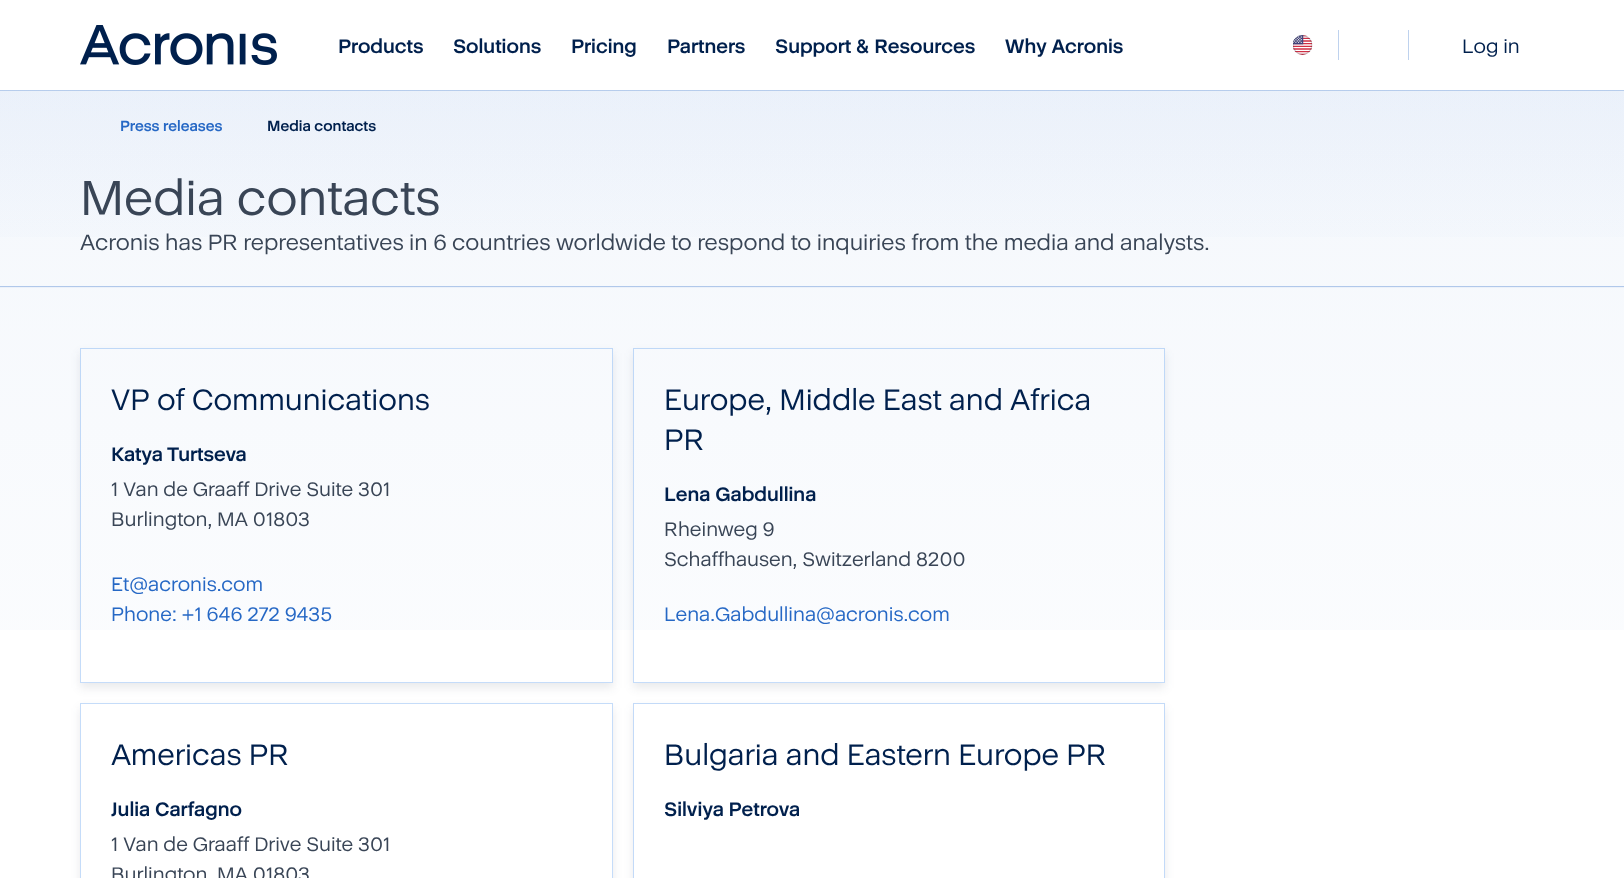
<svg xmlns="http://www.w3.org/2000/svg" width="1624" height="878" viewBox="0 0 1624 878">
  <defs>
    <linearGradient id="g1" gradientUnits="userSpaceOnUse" x1="813" y1="91" x2="813" y2="286"><stop offset="0" stop-color="rgb(245,248,253)"/><stop offset="1" stop-color="rgb(255,255,255)"/></linearGradient>
    <linearGradient id="g2" gradientUnits="userSpaceOnUse" x1="813" y1="286" x2="813" y2="481"><stop offset="0" stop-color="rgb(244,247,252)"/><stop offset="1" stop-color="rgb(255,255,255)"/></linearGradient>
    <linearGradient id="g3" gradientUnits="userSpaceOnUse" x1="813" y1="90" x2="813" y2="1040"><stop offset="0" stop-color="rgb(38,104,197)" stop-opacity="0.05"/><stop offset="1" stop-color="rgb(38,104,197)" stop-opacity="0"/></linearGradient>
    <clipPath id="clip1"><path d="M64 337H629V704H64ZM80 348H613V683H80Z" clip-rule="evenodd"/></clipPath>
    <clipPath id="clip2"><path d="M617 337H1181V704H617ZM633 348H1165V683H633Z" clip-rule="evenodd"/></clipPath>
    <clipPath id="clip3"><path d="M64 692H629V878H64ZM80 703H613V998H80Z" clip-rule="evenodd"/></clipPath>
    <clipPath id="clip4"><path d="M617 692H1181V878H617ZM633 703H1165V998H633Z" clip-rule="evenodd"/></clipPath>
  </defs>
  <rect width="100%" height="100%" fill="rgb(255,255,255)"/>
  <image x="80" y="25" width="197" height="40" href="pic1.png"/>
  <g font-family="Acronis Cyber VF" font-size="20" font-weight="bold" fill="rgb(0,32,77)">
    <text x="338" y="53">Products</text>
    <text x="453" y="53">Solutions</text>
    <text x="571" y="53">Pricing</text>
    <text x="667" y="53">Partners</text>
    <text x="775" y="53">Support &amp; Resources</text>
    <text x="1005" y="53">Why Acronis</text>
  </g>
  <image x="1293" y="35" width="20" height="20" href="pic2.png"/>
  <rect x="1338" y="30" width="1" height="30" fill="rgb(190,210,238)"/>
  <rect x="1408" y="30" width="1" height="30" fill="rgb(190,210,238)"/>
  <text x="1462" y="53" font-family="Acronis Cyber VF" font-size="20" fill="rgb(0,32,77)">Log in</text>
  <rect x="0" y="91" width="1624" height="146" fill="url(#g1)"/>
  <rect x="0" y="287" width="1624" height="1" fill="url(#g2)"/>
  <rect x="0" y="90" width="1624" height="1" fill="rgb(190,210,238)"/>
  <rect x="0" y="286" width="1624" height="1" fill="rgb(182,204,236)"/>
  <rect x="0" y="90" width="1624" height="540" fill="url(#g3)"/>
  <text x="120" y="131" font-family="Acronis Cyber VF" font-size="15" font-weight="bold" fill="rgb(38,104,197)">Press releases</text>
  <text x="267" y="131" font-family="Acronis Cyber VF" font-size="15" font-weight="bold" fill="rgb(0,32,77)">Media contacts</text>
  <text x="80" y="215" font-family="Acronis Cyber VF" font-size="50" fill="rgb(57,69,86)">Media contacts</text>
  <text x="80" y="250" font-family="Acronis Cyber VF" font-size="22.5" fill="rgb(57,69,86)">Acronis has PR representatives in 6 countries worldwide to respond to inquiries from the media and analysts.</text>
  <g clip-path="url(#clip1)">
    <rect x="80" y="353" width="533" height="335" fill="rgba(36,49,67,0.1)" filter="blur(5px)"/>
  </g>
  <rect x="80.5" y="348.5" width="532" height="334" fill="none" stroke="rgba(64,139,234,0.3)"/>
  <text x="111" y="410" font-family="Acronis Cyber VF" font-size="30" fill="rgb(0,32,77)">VP of Communications</text>
  <text x="111" y="461" font-family="Acronis Cyber VF" font-size="20" font-weight="bold" fill="rgb(0,32,77)">Katya Turtseva</text>
  <g font-family="Acronis Cyber VF" font-size="20" fill="rgb(57,69,86)">
    <text>
      <tspan x="111" y="496">1 Van de Graaff Drive Suite 301</tspan>
      <tspan x="111" y="526">Burlington, MA 01803</tspan>
    </text>
  </g>
  <g font-family="Acronis Cyber VF" font-size="20" fill="rgb(38,104,197)">
    <text>
      <tspan x="111" y="591">Et@acronis.com</tspan>
      <tspan x="111" y="621">Phone: +1 646 272 9435</tspan>
    </text>
  </g>
  <g clip-path="url(#clip2)">
    <rect x="633" y="353" width="532" height="335" fill="rgba(36,49,67,0.1)" filter="blur(5px)"/>
  </g>
  <rect x="633.5" y="348.5" width="531" height="334" fill="none" stroke="rgba(64,139,234,0.3)"/>
  <g font-family="Acronis Cyber VF" font-size="30" fill="rgb(0,32,77)">
    <text>
      <tspan x="664" y="410">Europe, Middle East and Africa</tspan>
      <tspan x="664" y="450">PR</tspan>
    </text>
  </g>
  <text x="664" y="501" font-family="Acronis Cyber VF" font-size="20" font-weight="bold" fill="rgb(0,32,77)">Lena Gabdullina</text>
  <g font-family="Acronis Cyber VF" font-size="20" fill="rgb(57,69,86)">
    <text>
      <tspan x="664" y="536">Rheinweg 9</tspan>
      <tspan x="664" y="566">Schaffhausen, Switzerland 8200</tspan>
    </text>
  </g>
  <text x="664" y="621" font-family="Acronis Cyber VF" font-size="20" fill="rgb(38,104,197)">Lena.Gabdullina@acronis.com</text>
  <g clip-path="url(#clip3)">
    <rect x="80" y="708" width="533" height="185" fill="rgba(36,49,67,0.1)" filter="blur(5px)"/>
  </g>
  <rect x="80.5" y="703.5" width="532" height="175" fill="none" stroke="rgba(64,139,234,0.3)"/>
  <text x="111" y="765" font-family="Acronis Cyber VF" font-size="30" fill="rgb(0,32,77)">Americas PR</text>
  <text x="111" y="816" font-family="Acronis Cyber VF" font-size="20" font-weight="bold" fill="rgb(0,32,77)">Julia Carfagno</text>
  <g font-family="Acronis Cyber VF" font-size="20" fill="rgb(57,69,86)">
    <text>
      <tspan x="111" y="851">1 Van de Graaff Drive Suite 301</tspan>
      <tspan x="111" y="881">Burlington, MA 01803</tspan>
    </text>
  </g>
  <g clip-path="url(#clip4)">
    <rect x="633" y="708" width="532" height="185" fill="rgba(36,49,67,0.1)" filter="blur(5px)"/>
  </g>
  <rect x="633.5" y="703.5" width="531" height="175" fill="none" stroke="rgb(195,218,248)"/>
  <text x="664" y="765" font-family="Acronis Cyber VF" font-size="30" fill="rgb(0,32,77)">Bulgaria and Eastern Europe PR</text>
  <text x="664" y="816" font-family="Acronis Cyber VF" font-size="20" font-weight="bold" fill="rgb(0,32,77)">Silviya Petrova</text>
</svg>
